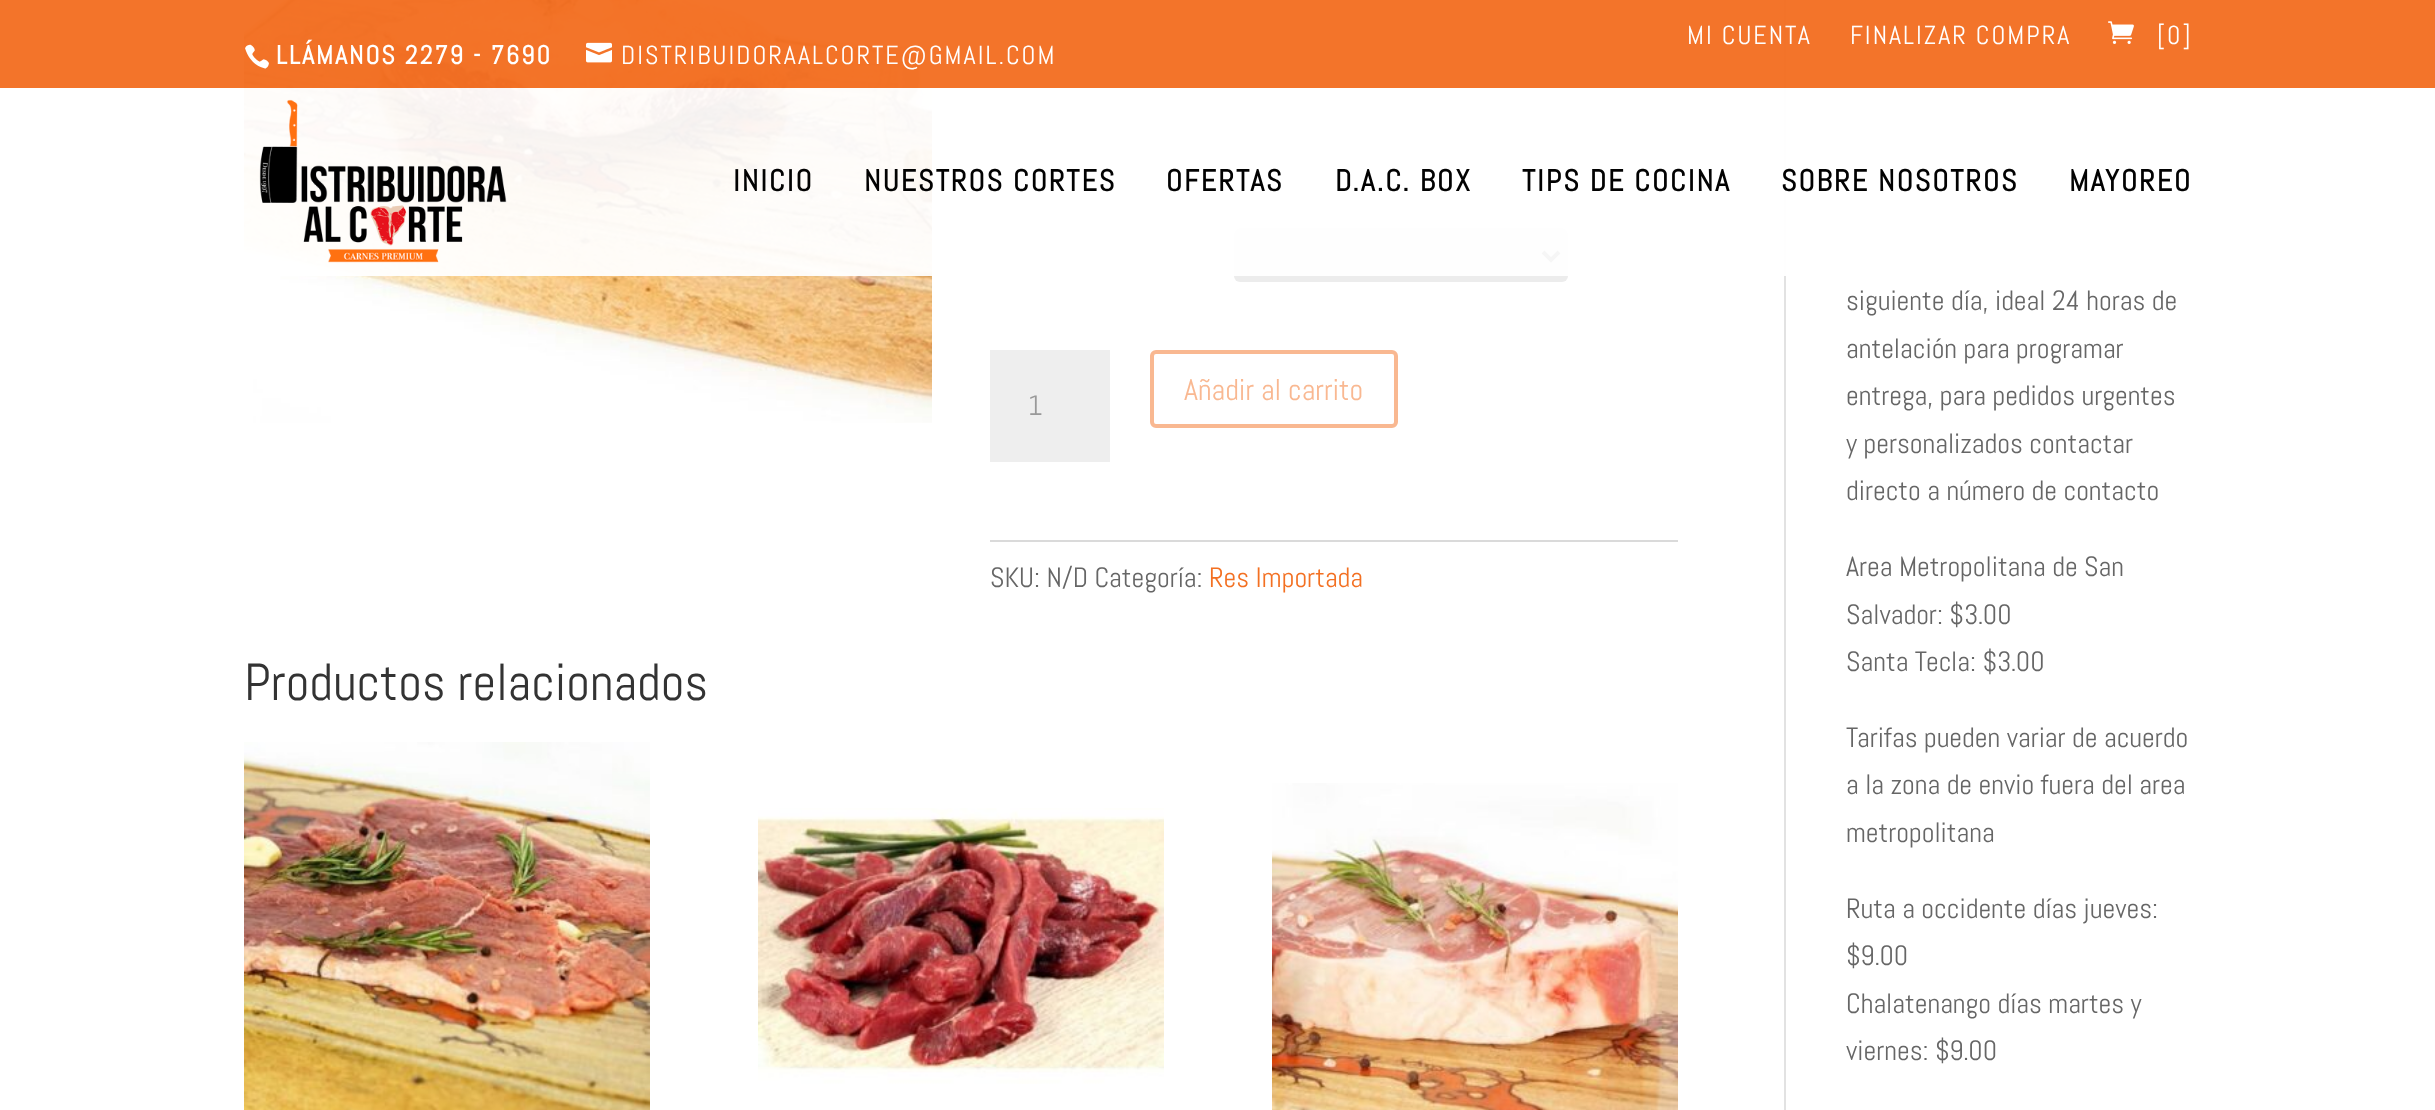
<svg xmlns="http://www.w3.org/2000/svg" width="2435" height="1110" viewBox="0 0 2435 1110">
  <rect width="100%" height="100%" fill="rgb(255,255,255)"/>
  <rect x="1784" y="0" width="2" height="1110" fill="rgb(226,226,226)"/>
  <image x="244" y="0" width="688" height="423" href="pic5.png"/>
  <rect x="0" y="0" width="2435" height="88" fill="rgba(243,110,33,0.96)"/>
  <g font-family="Abel" font-size="26" letter-spacing="2" fill="rgb(255,255,255)">
    <text x="1687" y="44">MI CUENTA</text>
    <text x="1850" y="44">FINALIZAR COMPRA</text>
  </g>
  <image x="2108" y="21" width="26" height="23" href="pic1.png"/>
  <text x="2157" y="44" font-family="Abel" font-size="26" letter-spacing="2" fill="rgb(255,255,255)">[0]</text>
  <image x="245" y="44" width="24" height="25" href="pic2.png"/>
  <text x="276" y="64" font-family="Abel" font-size="26" font-weight="bold" letter-spacing="2" fill="rgb(255,255,255)">LLÁMANOS 2279 - 7690</text>
  <image x="586" y="42" width="26" height="21" href="pic3.png"/>
  <text x="621" y="64" font-family="Abel" font-size="26" letter-spacing="2" fill="rgb(255,255,255)">DISTRIBUIDORAALCORTE@GMAIL.COM</text>
  <rect x="1234" y="228" width="334" height="54" rx="6" fill="rgb(236,236,236)"/>
  <path d="M1543 252L1551 260L1559 252" fill="none" stroke="rgb(102,102,102)" stroke-width="4"/>
  <rect x="244" y="88" width="1542" height="188" fill="rgba(255,255,255,0.94)"/>
  <image x="259" y="99" width="248" height="164" href="pic4.png"/>
  <g font-family="Abel" font-size="30" font-weight="bold" letter-spacing="2" fill="rgb(2,2,2)">
    <text x="733" y="191">INICIO</text>
    <text x="864" y="191">NUESTROS CORTES</text>
    <text x="1166" y="191">OFERTAS</text>
    <text x="1335" y="191">D.A.C. BOX</text>
    <text x="1522" y="191">TIPS DE COCINA</text>
    <text x="1781" y="191">SOBRE NOSOTROS</text>
    <text x="2069" y="191">MAYOREO</text>
  </g>
  <rect x="1152" y="352" width="244" height="74" rx="4" fill="none" stroke="rgb(249,184,145)" stroke-width="4"/>
  <text x="1184" y="400" font-family="Abel" font-size="30" fill="rgb(249,184,145)">Añadir al carrito</text>
  <rect x="990" y="350" width="120" height="112" fill="rgb(238,238,238)"/>
  <text x="1028" y="415" font-family="Abel" font-size="28" fill="rgb(153,153,153)">1</text>
  <rect x="990" y="540" width="688" height="2" fill="rgb(218,218,218)"/>
  <text x="990" y="587" font-family="Abel" font-size="28" fill="rgb(102,102,102)">SKU: N/D Categoría:</text>
  <text x="1209" y="587" font-family="Abel" font-size="28" fill="rgb(243,112,34)">Res Importada</text>
  <text x="244" y="700" font-family="Abel" font-size="52" fill="rgb(51,51,51)">Productos relacionados</text>
  <image x="244" y="742" width="406" height="368" href="pic6.png"/>
  <image x="758" y="808" width="406" height="276" href="pic7.png"/>
  <image x="1272" y="783" width="406" height="327" href="pic8.png"/>
  <g font-family="Abel" font-size="28" fill="rgb(102,102,102)">
    <text>
      <tspan x="1846" y="310">siguiente día, ideal 24 horas de</tspan>
      <tspan x="1846" y="358">antelación para programar</tspan>
      <tspan x="1846" y="405">entrega, para pedidos urgentes</tspan>
      <tspan x="1846" y="453">y personalizados contactar</tspan>
      <tspan x="1846" y="500">directo a número de contacto</tspan>
    </text>
    <text>
      <tspan x="1846" y="576">Area Metropolitana de San</tspan>
      <tspan x="1846" y="624">Salvador: $3.00</tspan>
      <tspan x="1846" y="671">Santa Tecla: $3.00</tspan>
    </text>
    <text>
      <tspan x="1846" y="747">Tarifas pueden variar de acuerdo</tspan>
      <tspan x="1846" y="794">a la zona de envio fuera del area</tspan>
      <tspan x="1846" y="842">metropolitana</tspan>
    </text>
    <text>
      <tspan x="1846" y="918">Ruta a occidente días jueves:</tspan>
      <tspan x="1846" y="965">$9.00</tspan>
      <tspan x="1846" y="1013">Chalatenango días martes y</tspan>
      <tspan x="1846" y="1060">viernes: $9.00</tspan>
    </text>
  </g>
</svg>
